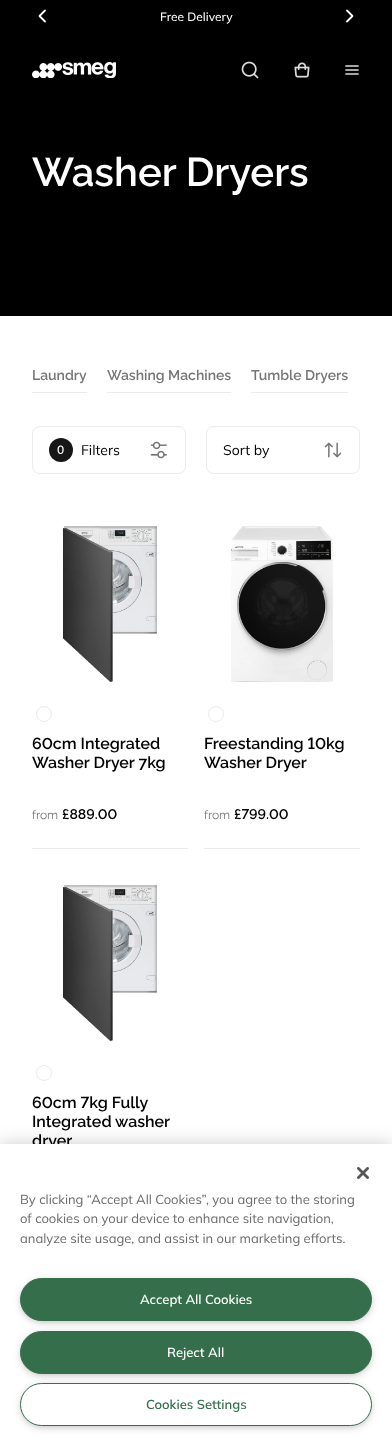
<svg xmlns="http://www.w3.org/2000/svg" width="392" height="1442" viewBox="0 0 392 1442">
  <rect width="100%" height="100%" fill="rgb(255,255,255)"/>
  <rect x="0" y="0" width="392" height="316" fill="rgb(0,0,0)"/>
  <path d="M45 10.5L39.5 16L45 21.5" fill="none" stroke="rgb(255,255,255)" stroke-width="1.8" stroke-linecap="round" stroke-linejoin="round"/>
  <text x="160" y="21" font-family="Mulish" font-size="12" font-weight="500" fill="rgb(255,255,255)">Free Delivery</text>
  <path d="M347 10.5L352.5 16L347 21.5" fill="none" stroke="rgb(255,255,255)" stroke-width="1.8" stroke-linecap="round" stroke-linejoin="round"/>
  <image x="32" y="62" width="84" height="16" href="pic1.png"/>
  <image x="241" y="61" width="18" height="18" href="pic2.png"/>
  <image x="294" y="62" width="16" height="16" href="pic3.png"/>
  <path d="M346 74H358M346 70H358M346 66H358" fill="none" stroke="rgb(221,221,221)" stroke-width="1.7" stroke-linecap="round" stroke-linejoin="round"/>
  <text x="32" y="186" font-family="Raleway" font-size="40" font-weight="600" fill="rgb(255,255,255)">Washer Dryers</text>
  <text x="32" y="380" font-family="Raleway" font-size="14" font-weight="600" fill="rgb(118,118,118)">Laundry</text>
  <rect x="32" y="392" width="55" height="1" fill="rgb(235,235,235)"/>
  <text x="107" y="380" font-family="Raleway" font-size="14" font-weight="600" fill="rgb(118,118,118)">Washing Machines</text>
  <rect x="107" y="392" width="124" height="1" fill="rgb(235,235,235)"/>
  <text x="251" y="380" font-family="Raleway" font-size="14" font-weight="600" fill="rgb(118,118,118)">Tumble Dryers</text>
  <rect x="251" y="392" width="97" height="1" fill="rgb(235,235,235)"/>
  <rect x="32.5" y="426.5" width="153" height="47" rx="7.5" fill="none" stroke="rgb(235,235,235)"/>
  <circle cx="61" cy="450" r="12" fill="rgb(23,23,23)"/>
  <text x="57" y="454" font-family="Mulish" font-size="12" font-weight="600" fill="rgb(255,255,255)">0</text>
  <text x="81" y="455" font-family="Mulish" font-size="14" fill="rgb(0,0,0)">Filters</text>
  <image x="150" y="441" width="17" height="18" href="pic4.png"/>
  <rect x="206.5" y="426.5" width="153" height="47" rx="7.5" fill="none" stroke="rgb(235,235,235)"/>
  <text x="223" y="455" font-family="Mulish" font-size="14" fill="rgb(0,0,0)">Sort by</text>
  <image x="324" y="442" width="18" height="16" href="pic5.png"/>
  <rect x="32" y="848" width="156" height="1" fill="rgb(235,235,235)"/>
  <image x="62" y="526" width="95" height="156" href="pic6.png"/>
  <circle cx="44" cy="714" r="7.5" fill="none" stroke="rgb(235,235,235)"/>
  <text x="32" y="749" font-family="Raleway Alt" font-size="16" font-weight="600" fill="rgb(0,0,0)">60cm Integrated</text>
  <text x="32" y="768" font-family="Raleway" font-size="16" font-weight="600" fill="rgb(0,0,0)">Washer Dryer 7kg</text>
  <text x="32" y="819" font-family="Raleway" font-size="12" fill="rgb(118,118,118)">from</text>
  <text x="62" y="819" font-family="Raleway Alt" font-size="14" font-weight="600" fill="rgb(0,0,0)">£889.00</text>
  <rect x="204" y="848" width="156" height="1" fill="rgb(235,235,235)"/>
  <image x="231" y="526" width="102" height="156" href="pic7.png"/>
  <circle cx="216" cy="714" r="7.5" fill="none" stroke="rgb(235,235,235)"/>
  <text x="204" y="749" font-family="Raleway Alt" font-size="16" font-weight="600" fill="rgb(0,0,0)">Freestanding 10kg</text>
  <text x="204" y="768" font-family="Raleway" font-size="16" font-weight="600" fill="rgb(0,0,0)">Washer Dryer</text>
  <text x="204" y="819" font-family="Raleway" font-size="12" fill="rgb(118,118,118)">from</text>
  <text x="234" y="819" font-family="Raleway Alt" font-size="14" font-weight="600" fill="rgb(0,0,0)">£799.00</text>
  <image x="62" y="885" width="95" height="156" href="pic8.png"/>
  <circle cx="44" cy="1073" r="7.5" fill="none" stroke="rgb(235,235,235)"/>
  <text x="32" y="1108" font-family="Raleway Alt" font-size="16" font-weight="600" fill="rgb(0,0,0)">60cm 7kg Fully</text>
  <g font-family="Raleway" font-size="16" font-weight="600" fill="rgb(0,0,0)">
    <text>
      <tspan x="32" y="1127">Integrated washer</tspan>
      <tspan x="32" y="1146">dryer</tspan>
    </text>
  </g>
  <rect x="0" y="1144" width="392" height="298" fill="rgba(0,0,0,0.2)" filter="blur(9px)"/>
  <rect x="0" y="1144" width="392" height="298" fill="rgb(255,255,255)"/>
  <image x="357" y="1167" width="12" height="12" href="pic9.png"/>
  <g font-family="Mulish" font-size="13" fill="rgb(105,105,105)">
    <text>
      <tspan x="20" y="1204">By clicking “Accept All Cookies”, you agree to the storing</tspan>
      <tspan x="20" y="1223">of cookies on your device to enhance site navigation,</tspan>
      <tspan x="20" y="1243">analyze site usage, and assist in our marketing efforts.</tspan>
    </text>
  </g>
  <rect x="23" y="1283" width="346" height="37" rx="18.5" fill="rgb(153,153,153)" filter="blur(5px)"/>
  <rect x="20.5" y="1278.5" width="351" height="42" rx="21" fill="rgb(52,110,74)" stroke="rgb(52,110,74)"/>
  <text x="140" y="1304" font-family="Mulish" font-size="13" font-weight="600" fill="rgb(255,255,255)">Accept All Cookies</text>
  <rect x="23" y="1336" width="346" height="37" rx="18.5" fill="rgb(153,153,153)" filter="blur(5px)"/>
  <rect x="20.5" y="1331.5" width="351" height="42" rx="21" fill="rgb(52,110,74)" stroke="rgb(52,110,74)"/>
  <text x="167" y="1357" font-family="Mulish" font-size="13" font-weight="600" fill="rgb(255,255,255)">Reject All</text>
  <rect x="23" y="1388" width="346" height="37" rx="18.5" fill="rgb(153,153,153)" filter="blur(5px)"/>
  <rect x="20.5" y="1383.5" width="351" height="42" rx="21" fill="rgb(255,255,255)" stroke="rgb(52,110,74)"/>
  <text x="146" y="1409" font-family="Mulish" font-size="13" font-weight="600" fill="rgb(52,110,74)">Cookies Settings</text>
</svg>
